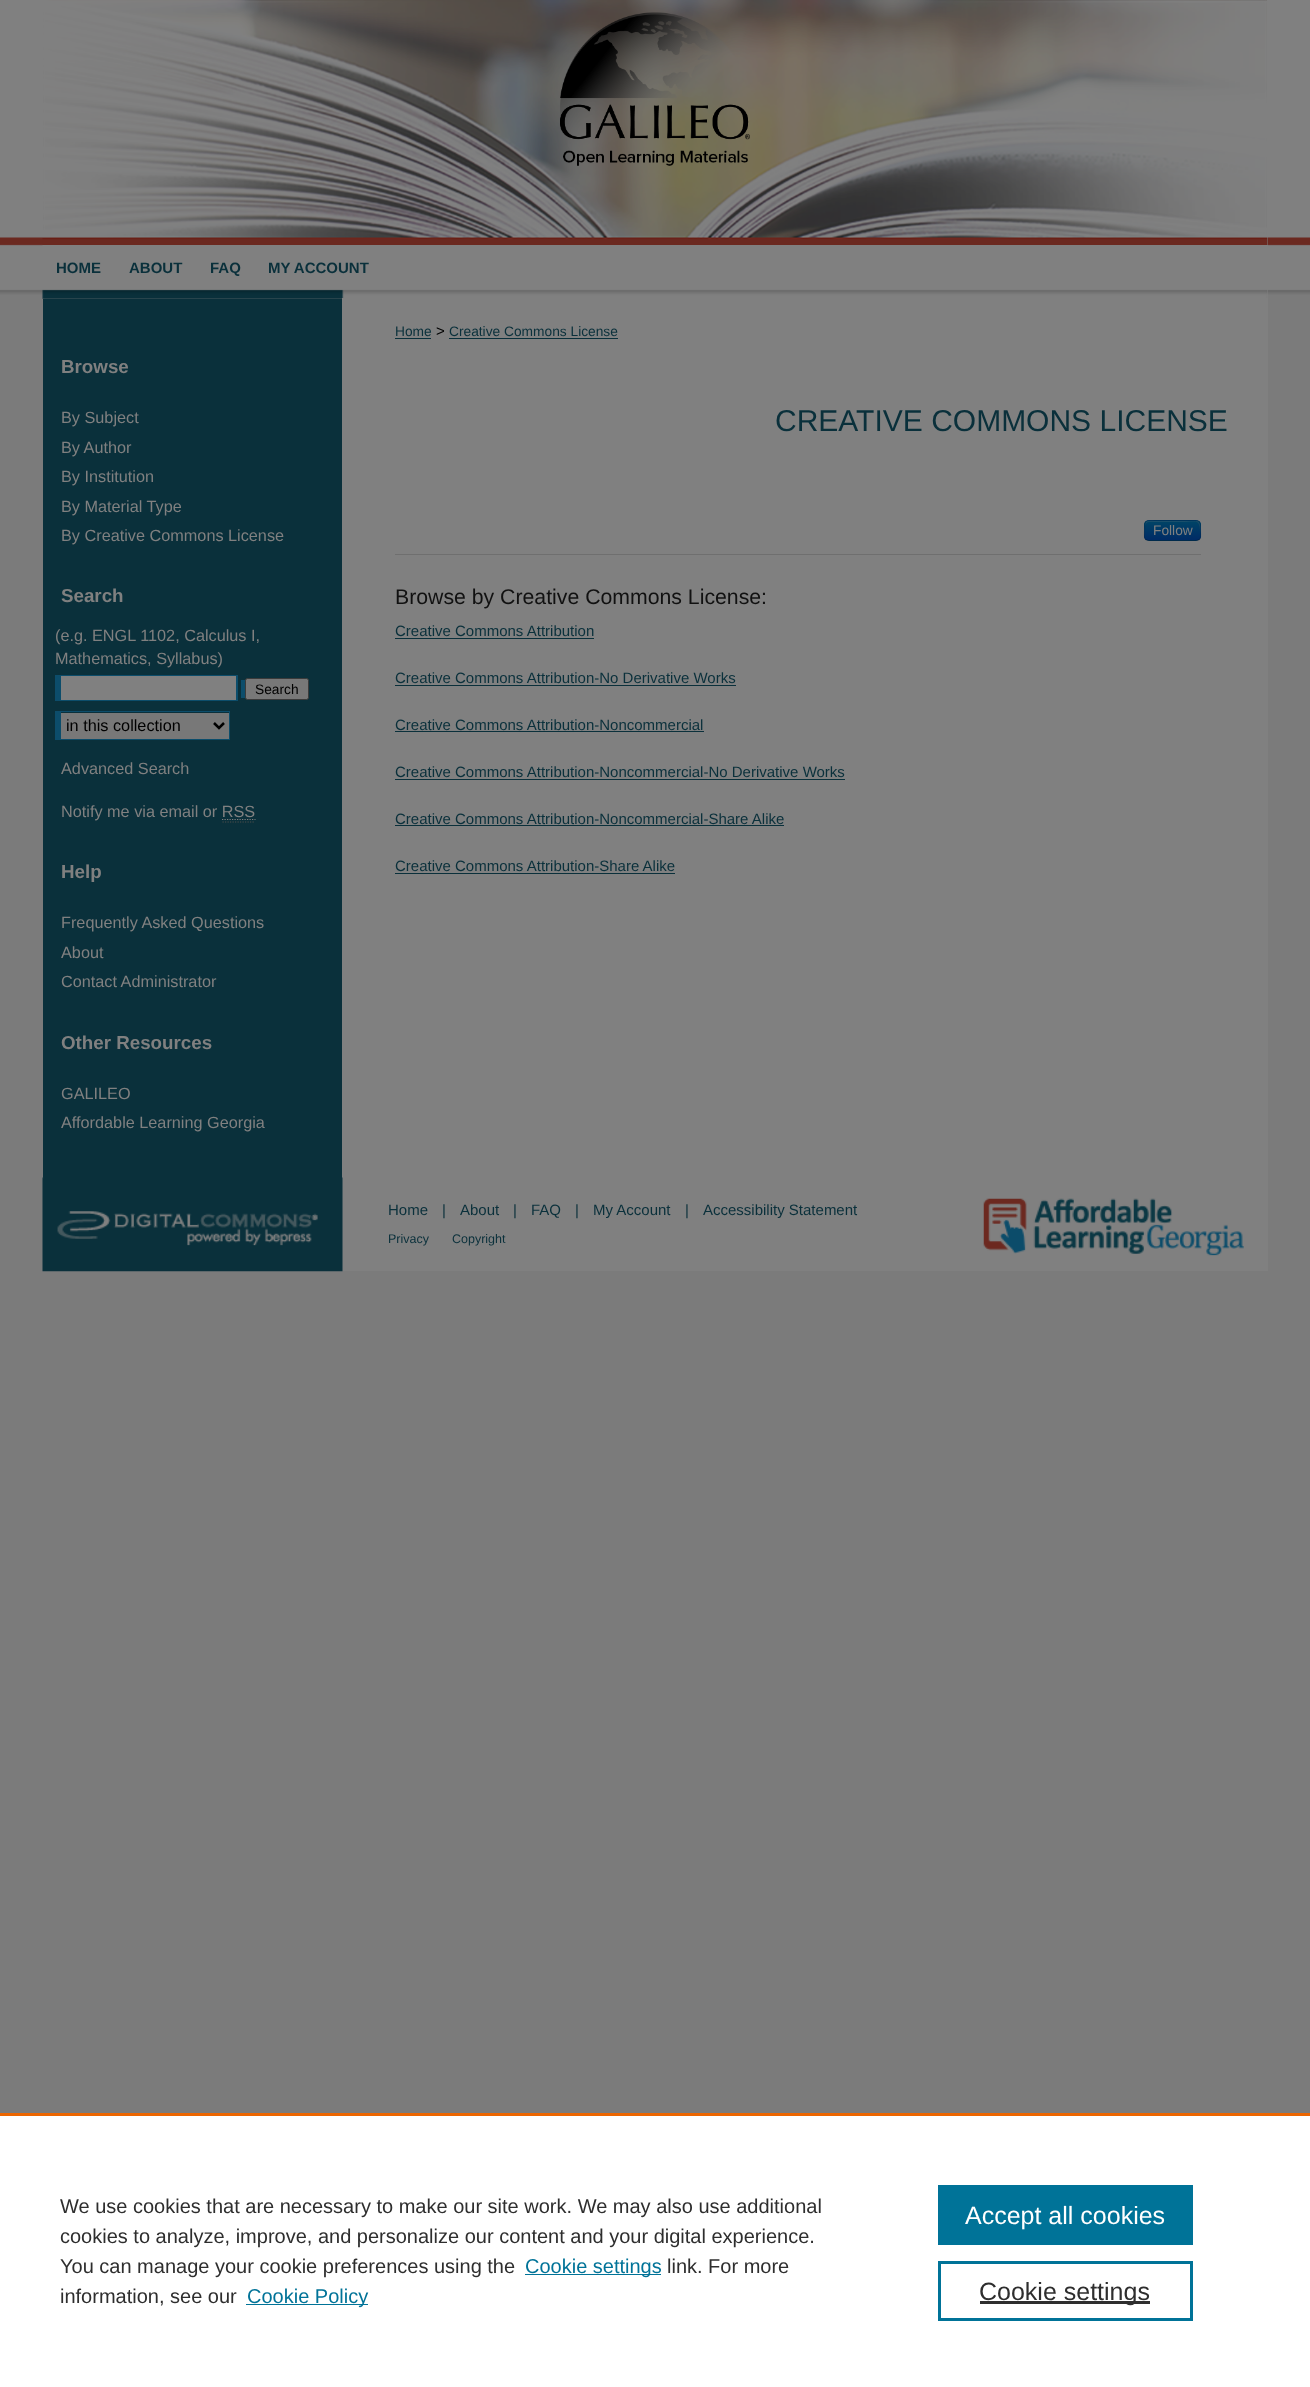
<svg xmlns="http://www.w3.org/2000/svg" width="1310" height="2387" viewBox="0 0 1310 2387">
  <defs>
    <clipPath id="clip1"><rect x="1144" y="520" width="57" height="21" rx="5"/></clipPath>
    <linearGradient id="g1" gradientUnits="userSpaceOnUse" x1="1173" y1="521" x2="1173" y2="540"><stop offset="0" stop-color="rgb(0,68,102)"/><stop offset="1" stop-color="rgb(0,43,102)"/></linearGradient>
  </defs>
  <rect width="100%" height="100%" fill="rgb(123,123,123)"/>
  <image x="0" y="0" width="1310" height="295" href="pic1.png"/>
  <rect x="1267" y="237" width="1" height="8" fill="rgb(128,128,128)"/>
  <image x="42" y="0" width="1226" height="245" href="pic2.png"/>
  <rect x="43" y="245" width="1225" height="54" fill="rgb(128,128,128)"/>
  <image x="42" y="245" width="1226" height="54" href="pic3.png"/>
  <g font-family="Liberation Sans" font-size="15" font-weight="bold" fill="rgb(10,48,59)">
    <text x="56" y="273">HOME</text>
    <text x="129" y="273">ABOUT</text>
    <text x="210" y="273">FAQ</text>
    <text x="268" y="273">MY ACCOUNT</text>
  </g>
  <rect x="43" y="299" width="299" height="879" fill="rgb(10,48,59)"/>
  <rect x="342" y="298" width="926" height="973" fill="rgb(128,128,128)"/>
  <text x="61" y="373" font-family="Liberation Sans" font-size="18.75" font-weight="bold" fill="rgb(128,128,128)">Browse</text>
  <g font-family="Liberation Sans" font-size="16.25" fill="rgb(128,128,128)">
    <text>
      <tspan x="61" y="423">By Subject</tspan>
      <tspan x="61" y="453">By Author</tspan>
      <tspan x="61" y="482">By Institution</tspan>
      <tspan x="61" y="512">By Material Type</tspan>
      <tspan x="61" y="541">By Creative Commons License</tspan>
    </text>
  </g>
  <text x="61" y="602" font-family="Liberation Sans" font-size="18.75" font-weight="bold" fill="rgb(128,128,128)">Search</text>
  <g font-family="Liberation Sans" font-size="16.25" fill="rgb(128,128,128)">
    <text>
      <tspan x="55" y="641">(e.g. ENGL 1102, Calculus I,</tspan>
      <tspan x="55" y="664">Mathematics, Syllabus)</tspan>
    </text>
  </g>
  <rect x="55" y="675" width="183" height="26" fill="rgb(12,77,107)"/>
  <rect x="241" y="680" width="4" height="18" fill="rgb(12,77,107)"/>
  <rect x="61" y="676" width="175" height="24" fill="rgb(128,128,128)"/>
  <rect x="245.5" y="678.5" width="63" height="21" rx="2" fill="rgb(120,120,120)" stroke="rgb(59,59,59)"/>
  <text x="255" y="694" font-family="Liberation Sans" font-size="13.75" fill="rgb(0,0,0)">Search</text>
  <rect x="61" y="713" width="168" height="26" fill="rgb(120,120,120)"/>
  <rect x="55" y="711" width="175" height="1" fill="rgb(12,77,107)"/>
  <rect x="229" y="711" width="1" height="29" fill="rgb(12,77,107)"/>
  <rect x="55" y="739" width="175" height="1" fill="rgb(12,77,107)"/>
  <rect x="55" y="711" width="6" height="29" fill="rgb(12,77,107)"/>
  <path d="M214 723L219 728L224 723" fill="none" stroke="rgb(0,0,0)" stroke-width="2.5"/>
  <text x="66" y="731" font-family="Liberation Sans" font-size="16.25" fill="rgb(0,0,0)">in this collection</text>
  <g font-family="Liberation Sans" font-size="16.25" fill="rgb(128,128,128)">
    <text x="61" y="774">Advanced Search</text>
    <text x="61" y="817">Notify me via email or RSS</text>
  </g>
  <path d="M222 819.5H255.5" fill="none" stroke="rgb(128,128,128)" stroke-width="1.2" stroke-dasharray="1.25 1.25"/>
  <path d="M222.5 822H255" fill="none" stroke="rgb(77,77,77)" stroke-width="1.2" stroke-dasharray="1.25 1.25"/>
  <text x="61" y="878" font-family="Liberation Sans" font-size="18.75" font-weight="bold" fill="rgb(128,128,128)">Help</text>
  <g font-family="Liberation Sans" font-size="16.25" fill="rgb(128,128,128)">
    <text>
      <tspan x="61" y="928">Frequently Asked Questions</tspan>
      <tspan x="61" y="958">About</tspan>
      <tspan x="61" y="987">Contact Administrator</tspan>
    </text>
  </g>
  <text x="61" y="1049" font-family="Liberation Sans" font-size="18.75" font-weight="bold" fill="rgb(128,128,128)">Other Resources</text>
  <g font-family="Liberation Sans" font-size="16.25" fill="rgb(128,128,128)">
    <text>
      <tspan x="61" y="1099">GALILEO</tspan>
      <tspan x="61" y="1128">Affordable Learning Georgia</tspan>
    </text>
  </g>
  <text x="395" y="336" font-family="Liberation Sans" font-size="13.75" fill="rgb(10,48,59)">Home</text>
  <rect x="395" y="338" width="36" height="1" fill="rgb(10,48,59)"/>
  <text x="436" y="336" font-family="Liberation Sans" font-size="15" fill="rgb(0,0,0)">&gt;</text>
  <text x="449" y="336" font-family="Liberation Sans" font-size="13.75" fill="rgb(10,48,59)">Creative Commons License</text>
  <rect x="449" y="338" width="169" height="1" fill="rgb(10,48,59)"/>
  <text x="775" y="431" font-family="Liberation Sans" font-size="30" fill="rgb(10,48,59)">CREATIVE COMMONS LICENSE</text>
  <rect x="395" y="554" width="806" height="1" fill="rgb(111,111,111)"/>
  <rect x="1144" y="520" width="57" height="21" rx="5" fill="rgb(0,58,102)"/>
  <g clip-path="url(#clip1)">
    <rect x="1144" y="521" width="57" height="19" fill="url(#g1)"/>
  </g>
  <path d="M1149 522H1180C1198 522 1200 517 1200 536C1200 532 1202 522 1197 521H1157C1147 521 1145 519 1145 529V538C1145 534 1143 522 1149 522Z" fill="rgba(128,128,128,0.2)"/>
  <path d="M1199.5 539.5C1198.5 540 1197.5 540.5 1196 540.5H1149C1147.5 540.5 1146.5 540 1145.5 539.5" fill="none" stroke="rgba(0,0,0,0.25)" stroke-width="1.2"/>
  <path d="M1145.5 539.5C1143.5 537 1144.5 533.5 1144.5 530.5C1144.5 519.5 1145 520.5 1156.5 520.5H1188.5C1200 520.5 1200.5 519.5 1200.5 530.5C1200.5 533.5 1201.5 537 1199.5 539.5" fill="none" stroke="rgba(0,0,0,0.1)" stroke-width="1.2"/>
  <text x="1153" y="535" font-family="Liberation Sans" font-size="13.75" fill="rgb(128,128,128)">Follow</text>
  <text x="395" y="604" font-family="Liberation Sans" font-size="21.25" fill="rgb(17,17,17)">Browse by Creative Commons License:</text>
  <text x="395" y="636" font-family="Liberation Sans" font-size="15" fill="rgb(10,48,59)">Creative Commons Attribution</text>
  <rect x="395" y="638" width="199" height="1" fill="rgb(10,48,59)"/>
  <text x="395" y="683" font-family="Liberation Sans" font-size="15" fill="rgb(10,48,59)">Creative Commons Attribution-No Derivative Works</text>
  <rect x="395" y="685" width="341" height="1" fill="rgb(10,48,59)"/>
  <text x="395" y="730" font-family="Liberation Sans" font-size="15" fill="rgb(10,48,59)">Creative Commons Attribution-Noncommercial</text>
  <rect x="395" y="731" width="309" height="1" fill="rgb(10,48,59)"/>
  <text x="395" y="777" font-family="Liberation Sans" font-size="15" fill="rgb(10,48,59)">Creative Commons Attribution-Noncommercial-No Derivative Works</text>
  <rect x="395" y="779" width="450" height="1" fill="rgb(10,48,59)"/>
  <text x="395" y="824" font-family="Liberation Sans" font-size="15" fill="rgb(10,48,59)">Creative Commons Attribution-Noncommercial-Share Alike</text>
  <rect x="395" y="825" width="389" height="1" fill="rgb(10,48,59)"/>
  <text x="395" y="871" font-family="Liberation Sans" font-size="15" fill="rgb(10,48,59)">Creative Commons Attribution-Share Alike</text>
  <rect x="395" y="873" width="280" height="1" fill="rgb(10,48,59)"/>
  <image x="42" y="1177" width="301" height="95" href="pic4.png"/>
  <g font-family="Liberation Sans" font-size="15" fill="rgb(10,48,59)">
    <text x="388" y="1215">Home</text>
    <text x="442" y="1215">|</text>
    <text x="460" y="1215">About</text>
    <text x="513" y="1215">|</text>
    <text x="531" y="1215">FAQ</text>
    <text x="575" y="1215">|</text>
    <text x="593" y="1215">My Account</text>
    <text x="685" y="1215">|</text>
    <text x="703" y="1215">Accessibility Statement</text>
  </g>
  <image x="983" y="1198" width="261" height="58" href="pic5.png"/>
  <g font-family="Liberation Sans" font-size="12.5" fill="rgb(10,48,59)">
    <text x="388" y="1243">Privacy</text>
    <text x="452" y="1243">Copyright</text>
  </g>
  <rect x="0" y="2116" width="1310" height="271" fill="rgb(255,255,255)"/>
  <rect x="0" y="2113" width="1310" height="3" fill="rgb(235,101,0)"/>
  <g font-family="Liberation Sans" font-size="20" fill="rgb(46,46,46)">
    <text>
      <tspan x="60" y="2213">We use cookies that are necessary to make our site work. We may also use additional</tspan>
      <tspan x="60" y="2243">cookies to analyze, improve, and personalize our content and your digital experience.</tspan>
      <tspan x="60" y="2273">You can manage your cookie preferences using the</tspan>
    </text>
  </g>
  <rect x="525" y="2274" width="136" height="1" fill="rgb(0,115,152)"/>
  <text x="525" y="2273" font-family="Liberation Sans" font-size="20" fill="rgb(0,115,152)">Cookie settings</text>
  <g font-family="Liberation Sans" font-size="20" fill="rgb(46,46,46)">
    <text x="667" y="2273">link. For more</text>
    <text x="60" y="2303">information, see our</text>
  </g>
  <rect x="246" y="2304" width="122" height="1" fill="rgb(0,115,152)"/>
  <text x="247" y="2303" font-family="Liberation Sans" font-size="20" fill="rgb(0,115,152)">Cookie Policy</text>
  <rect x="938" y="2185" width="255" height="60" fill="rgb(0,115,152)"/>
  <text x="965" y="2224" font-family="Liberation Sans" font-size="25" fill="rgb(255,255,255)">Accept all cookies</text>
  <rect x="939.5" y="2262.5" width="252" height="57" fill="none" stroke="rgb(0,115,152)" stroke-width="3"/>
  <rect x="980" y="2301" width="170" height="3" fill="rgb(46,46,46)"/>
  <text x="979" y="2300" font-family="Liberation Sans" font-size="25" fill="rgb(46,46,46)">Cookie settings</text>
</svg>
